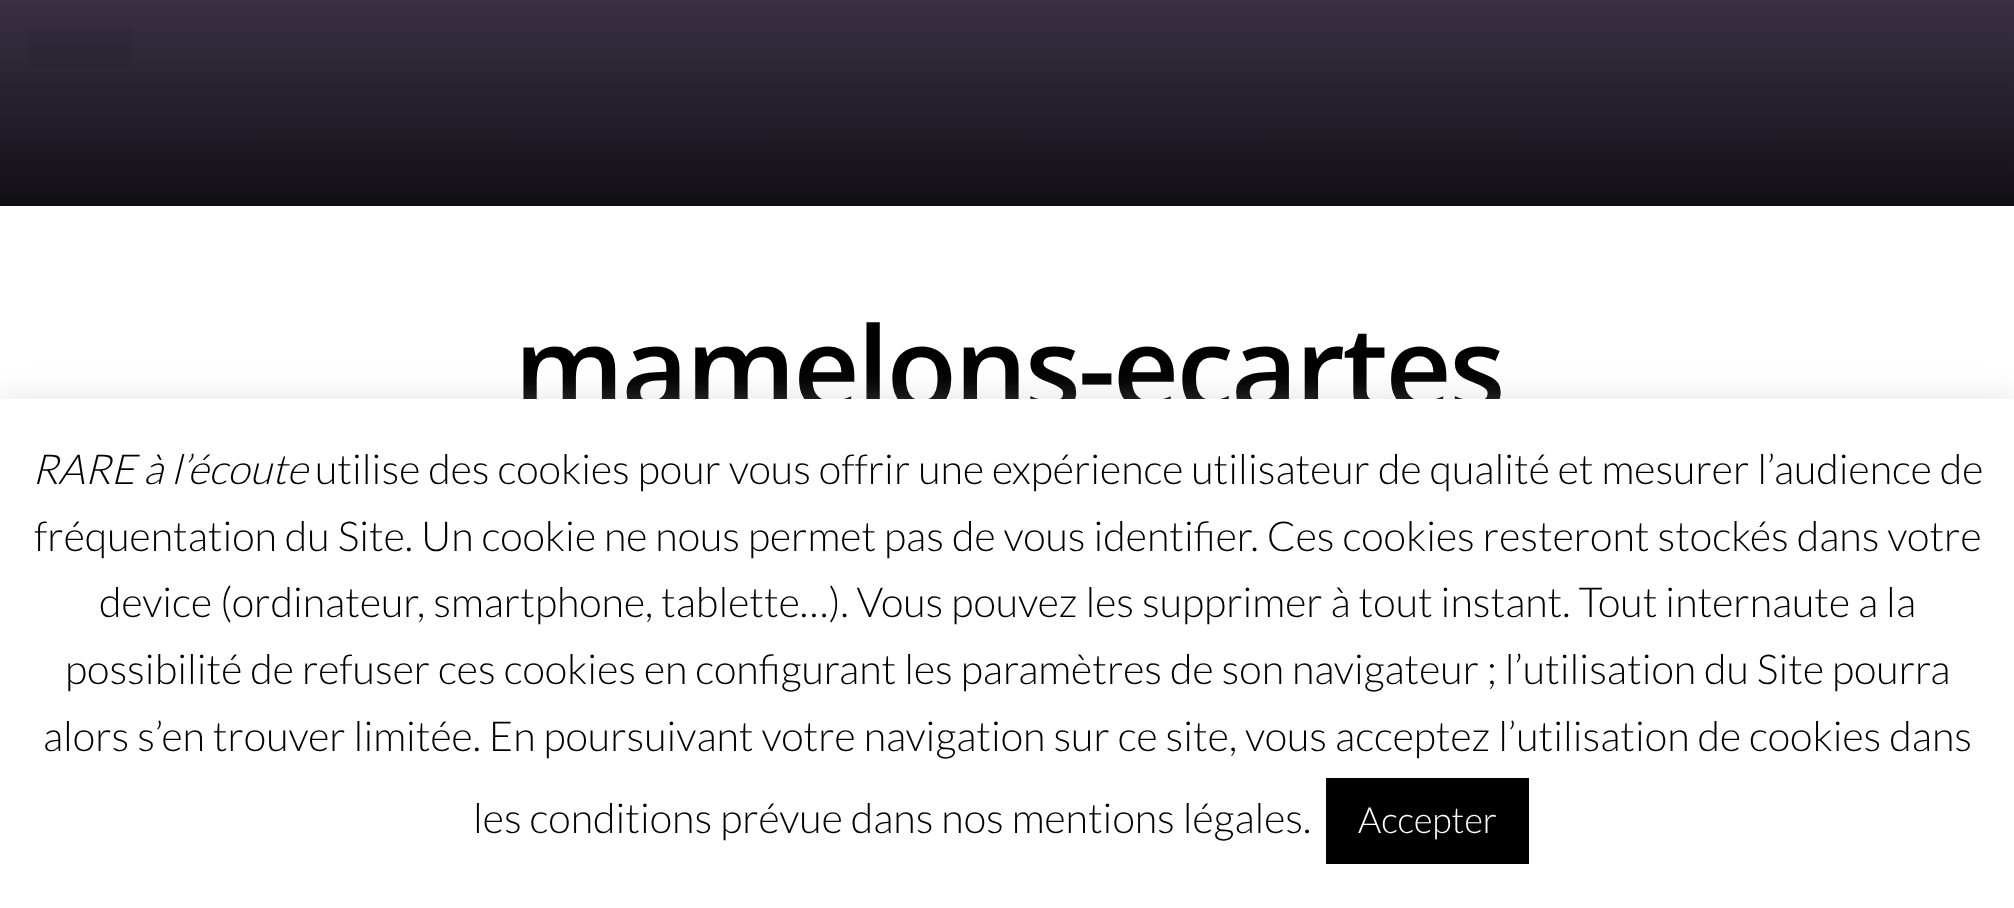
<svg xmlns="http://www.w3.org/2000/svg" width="2014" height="908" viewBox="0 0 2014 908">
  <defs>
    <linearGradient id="g1" gradientUnits="userSpaceOnUse" x1="1008" y1="0" x2="1008" y2="206"><stop offset="0" stop-color="rgb(58,49,68)"/><stop offset="1" stop-color="rgb(17,15,21)"/></linearGradient>
  </defs>
  <rect width="100%" height="100%" fill="rgb(255,255,255)"/>
  <rect x="0" y="0" width="2014" height="206" fill="url(#g1)"/>
  <rect x="28" y="28" width="104" height="40" fill="rgba(0,0,0,0.05)"/>
  <text x="514" y="410" font-family="Open Sans" font-size="115.5" font-weight="600" letter-spacing="-2.75" fill="rgb(0,0,0)">mamelons-ecartes</text>
  <rect x="0" y="396" width="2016" height="512" fill="rgba(172,171,171,0.3)" filter="blur(14px)"/>
  <rect x="0" y="399" width="2014" height="509" fill="rgb(255,255,255)"/>
  <text x="32" y="484" font-family="Lato" font-size="41.25" font-weight="300" font-style="italic" fill="rgb(0,0,0)">RARE à l’écoute</text>
  <g font-family="Lato" font-size="41.25" font-weight="300" fill="rgb(0,0,0)">
    <text x="315" y="484">utilise des cookies pour vous offrir une expérience utilisateur de qualité et mesurer l’audience de</text>
    <text x="34" y="551">fréquentation du Site. Un cookie ne nous permet pas de vous identifier. Ces cookies resteront stockés dans votre</text>
    <text x="99" y="617">device (ordinateur, smartphone, tablette…). Vous pouvez les supprimer à tout instant. Tout internaute a la</text>
    <text x="65" y="684">possibilité de refuser ces cookies en configurant les paramètres de son navigateur ; l’utilisation du Site pourra</text>
    <text x="43" y="751">alors s’en trouver limitée. En poursuivant votre navigation sur ce site, vous acceptez l’utilisation de cookies dans</text>
    <text x="473" y="833">les conditions prévue dans nos mentions légales.</text>
  </g>
  <rect x="1326" y="778" width="203" height="86" fill="rgb(0,0,0)"/>
  <text x="1358" y="833" font-family="Lato" font-size="36" font-weight="300" fill="rgb(255,255,255)">Accepter</text>
</svg>
